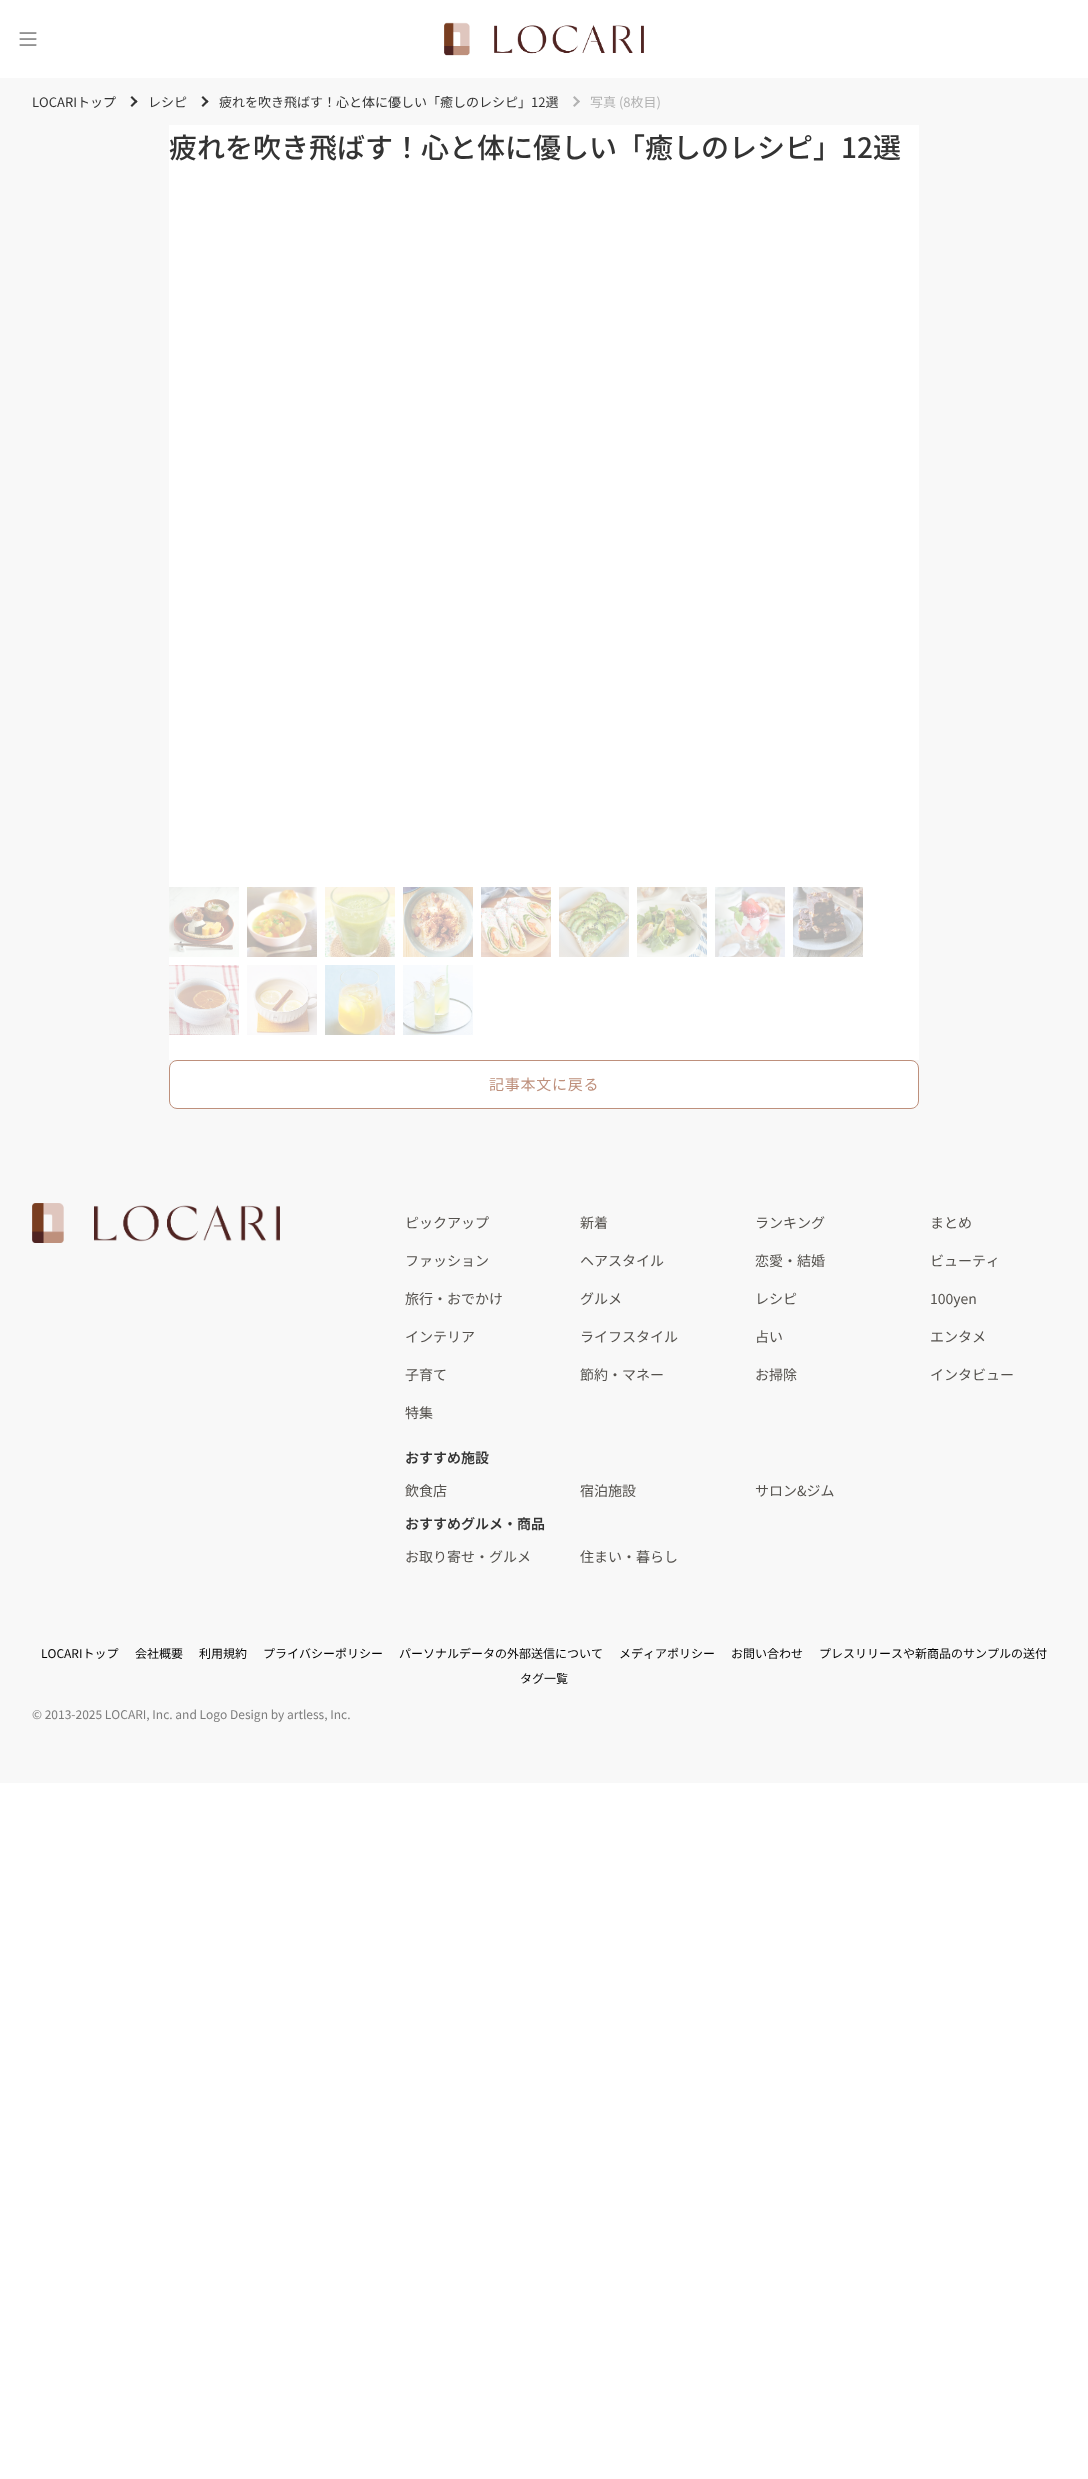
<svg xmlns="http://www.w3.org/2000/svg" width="1088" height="2479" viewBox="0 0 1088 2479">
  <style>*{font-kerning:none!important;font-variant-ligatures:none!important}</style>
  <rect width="100%" height="100%" fill="rgb(255,255,255)"/>
  <rect x="0" y="78" width="1088" height="1705" fill="rgb(248,248,248)"/>
  <image x="19" y="32" width="18" height="14" href="pic1.png"/>
  <image x="444" y="22" width="200" height="34" href="pic2.png"/>
  <text x="32" y="107" font-family="Noto Sans JP" font-size="13" fill="rgb(51,51,51)">LOCARIトップ</text>
  <path d="M130.5 97.5L132 96L137.5 101.5L136 103Z" fill="rgb(51,51,51)"/>
  <path d="M130.5 105.5L136 100L137.5 101.5L132 107Z" fill="rgb(51,51,51)"/>
  <text x="148" y="107" font-family="Noto Sans JP" font-size="13" fill="rgb(51,51,51)">レシピ</text>
  <path d="M201.5 97.5L203 96L208.5 101.5L207 103Z" fill="rgb(51,51,51)"/>
  <path d="M201.5 105.5L207 100L208.5 101.5L203 107Z" fill="rgb(51,51,51)"/>
  <text x="219" y="107" font-family="Noto Sans JP" font-size="13" fill="rgb(51,51,51)">疲れを吹き飛ばす！心と体に優しい「癒しのレシピ」12選</text>
  <path d="M573 97.5L574.5 96L580 101.5L578.5 103Z" fill="rgb(178,178,178)"/>
  <path d="M573 105.5L578.5 100L580 101.5L574.5 107Z" fill="rgb(178,178,178)"/>
  <text x="590" y="107" font-family="Noto Sans JP" font-size="13" fill="rgb(178,178,178)">写真 (8枚目)</text>
  <rect x="169" y="125" width="750" height="935" fill="rgb(255,255,255)"/>
  <text x="169" y="158" font-family="Noto Sans JP" font-size="28" font-weight="500" fill="rgb(51,51,51)">疲れを吹き飛ばす！心と体に優しい「癒しのレシピ」12選</text>
  <image x="169" y="887" width="70" height="70" href="pic3.png"/>
  <image x="247" y="887" width="70" height="70" href="pic4.png"/>
  <image x="325" y="887" width="70" height="70" href="pic5.png"/>
  <image x="403" y="887" width="70" height="70" href="pic6.png"/>
  <image x="481" y="887" width="70" height="70" href="pic7.png"/>
  <image x="559" y="887" width="70" height="70" href="pic8.png"/>
  <image x="637" y="887" width="70" height="70" href="pic9.png"/>
  <image x="715" y="887" width="70" height="70" href="pic10.png"/>
  <image x="793" y="887" width="70" height="70" href="pic11.png"/>
  <image x="169" y="965" width="70" height="70" href="pic12.png"/>
  <image x="247" y="965" width="70" height="70" href="pic13.png"/>
  <image x="325" y="965" width="70" height="70" href="pic14.png"/>
  <image x="403" y="965" width="70" height="70" href="pic15.png"/>
  <rect x="169.5" y="1060.5" width="749" height="48" rx="7.5" fill="rgb(255,255,255)" stroke="rgb(190,144,124)"/>
  <text x="489" y="1090" font-family="Noto Sans JP" font-size="15" letter-spacing="0.75" fill="rgb(190,144,124)">記事本文に戻る</text>
  <image x="32" y="1203" width="248" height="40" href="pic16.png"/>
  <g font-family="Noto Sans JP" font-size="14" fill="rgb(84,81,77)">
    <text x="405" y="1228">ピックアップ</text>
    <text x="580" y="1228">新着</text>
    <text x="755" y="1228">ランキング</text>
    <text x="930" y="1228">まとめ</text>
    <text x="405" y="1266">ファッション</text>
    <text x="580" y="1266">ヘアスタイル</text>
    <text x="755" y="1266">恋愛・結婚</text>
    <text x="930" y="1266">ビューティ</text>
    <text x="405" y="1304">旅行・おでかけ</text>
    <text x="580" y="1304">グルメ</text>
    <text x="755" y="1304">レシピ</text>
    <text x="930" y="1304">100yen</text>
    <text x="405" y="1342">インテリア</text>
    <text x="580" y="1342">ライフスタイル</text>
    <text x="755" y="1342">占い</text>
    <text x="930" y="1342">エンタメ</text>
    <text x="405" y="1380">子育て</text>
    <text x="580" y="1380">節約・マネー</text>
    <text x="755" y="1380">お掃除</text>
    <text x="930" y="1380">インタビュー</text>
    <text x="405" y="1418">特集</text>
  </g>
  <text x="405" y="1463" font-family="Noto Sans JP" font-size="14" font-weight="600" fill="rgb(51,51,51)">おすすめ施設</text>
  <g font-family="Noto Sans JP" font-size="14" fill="rgb(84,81,77)">
    <text x="405" y="1496">飲食店</text>
    <text x="580" y="1496">宿泊施設</text>
    <text x="755" y="1496">サロン&amp;ジム</text>
  </g>
  <text x="405" y="1529" font-family="Noto Sans JP" font-size="14" font-weight="600" fill="rgb(51,51,51)">おすすめグルメ・商品</text>
  <g font-family="Noto Sans JP" font-size="14" fill="rgb(84,81,77)">
    <text x="405" y="1562">お取り寄せ・グルメ</text>
    <text x="580" y="1562">住まい・暮らし</text>
  </g>
  <g font-family="Noto Sans JP" font-size="12" fill="rgb(0,0,0)">
    <text x="41" y="1658">LOCARIトップ</text>
    <text x="135" y="1658">会社概要</text>
    <text x="199" y="1658">利用規約</text>
    <text x="263" y="1658">プライバシーポリシー</text>
    <text x="399" y="1658">パーソナルデータの外部送信について</text>
    <text x="619" y="1658">メディアポリシー</text>
    <text x="731" y="1658">お問い合わせ</text>
    <text x="819" y="1658">プレスリリースや新商品のサンプルの送付</text>
    <text x="520" y="1683">タグ一覧</text>
  </g>
  <text x="32" y="1719" font-family="Noto Sans JP" font-size="12" fill="rgb(124,124,124)">© 2013-2025 LOCARI, Inc. and Logo Design by artless, Inc.</text>
</svg>
